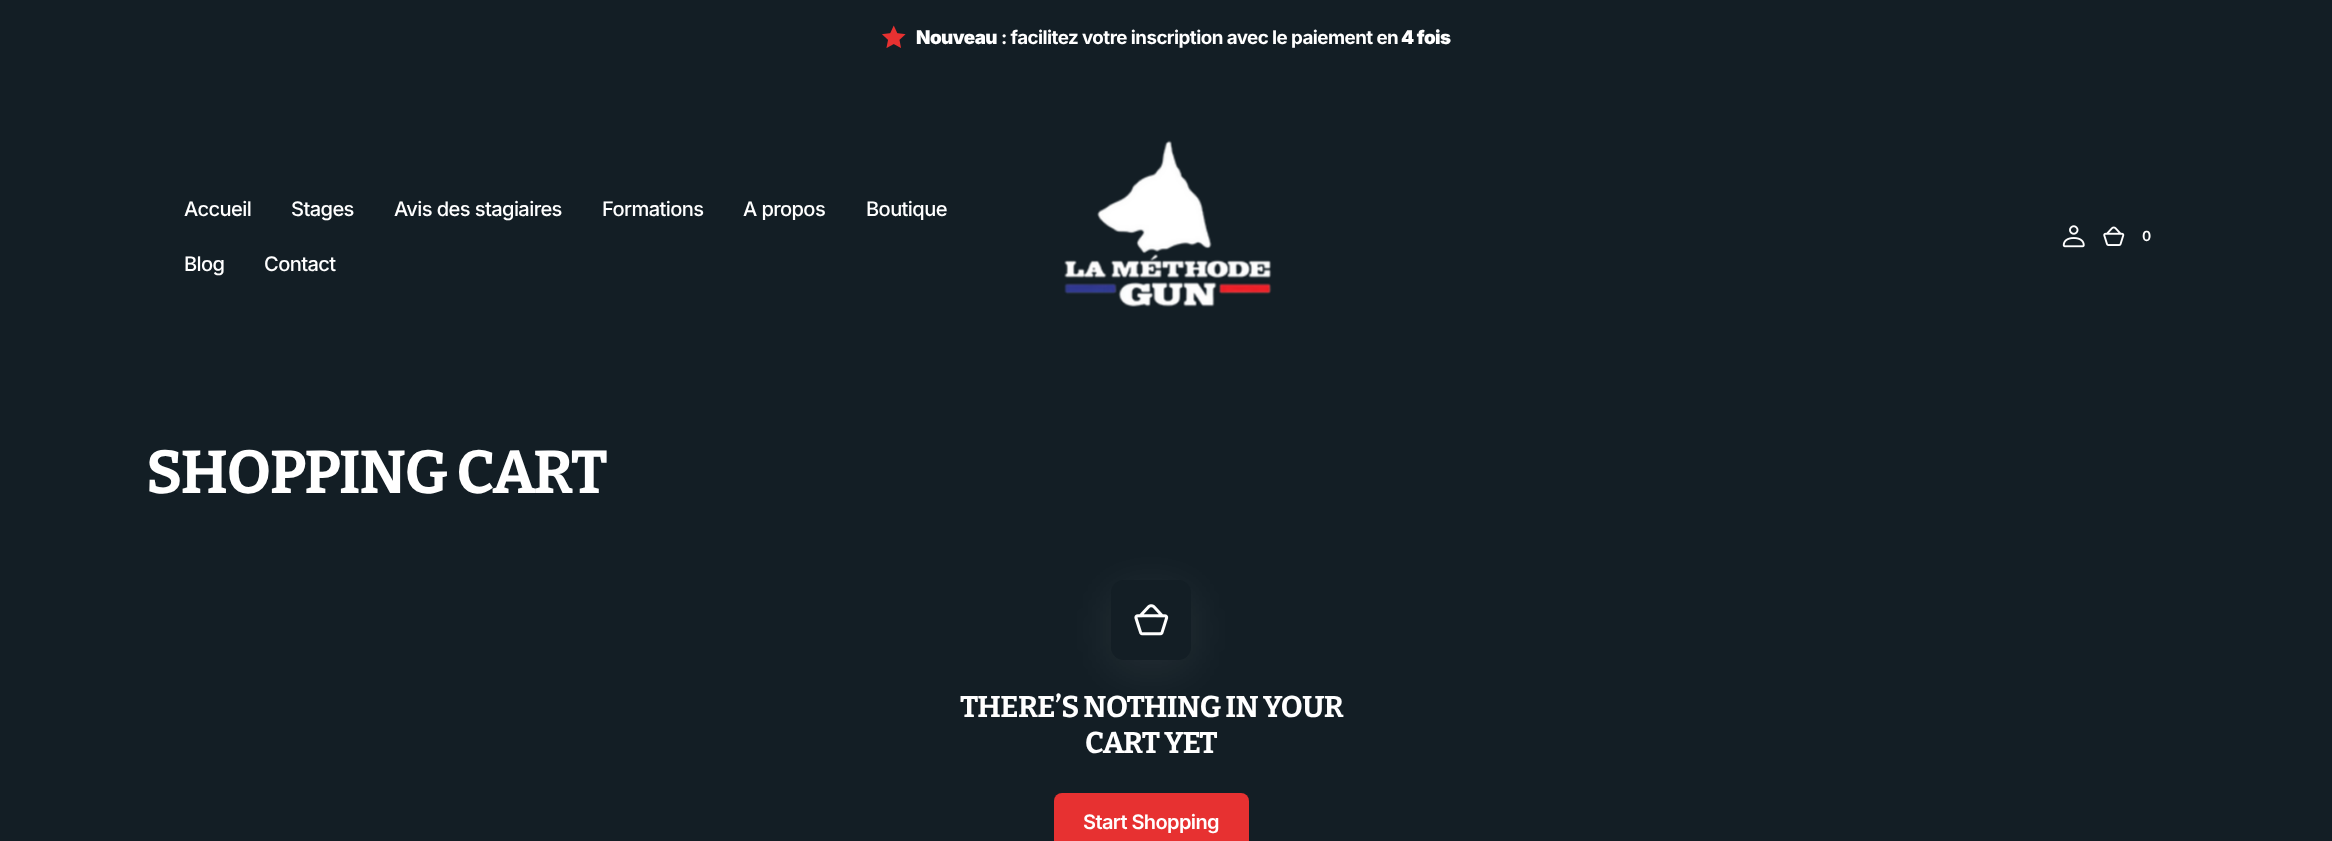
<svg xmlns="http://www.w3.org/2000/svg" width="2332" height="841" viewBox="0 0 2332 841">
  <rect width="100%" height="100%" fill="rgb(19,30,37)"/>
  <image x="882" y="25" width="24" height="23" href="pic1.png"/>
  <text x="916" y="44" font-family="Inter" font-size="18.75" font-weight="900" letter-spacing="-0.55" fill="rgb(255,255,255)">Nouveau</text>
  <text x="1001" y="44" font-family="Inter" font-size="18.75" font-weight="bold" letter-spacing="-0.55" fill="rgb(255,255,255)">: facilitez votre inscription avec le paiement en</text>
  <text x="1401" y="44" font-family="Inter" font-size="18.75" font-weight="900" letter-spacing="-0.55" fill="rgb(255,255,255)">4 fois</text>
  <g font-family="Inter" font-size="20.1" font-weight="500" letter-spacing="-0.6" fill="rgb(255,255,255)">
    <text x="184" y="216">Accueil</text>
    <text x="291" y="216">Stages</text>
    <text x="394" y="216">Avis des stagiaires</text>
    <text x="602" y="216">Formations</text>
    <text x="743" y="216">A propos</text>
    <text x="866" y="216">Boutique</text>
    <text x="184" y="271">Blog</text>
    <text x="264" y="271">Contact</text>
  </g>
  <image x="1064" y="140" width="208" height="167" href="pic2.png"/>
  <image x="2062" y="225" width="23" height="23" href="pic3.png"/>
  <image x="2103" y="226" width="22" height="20" href="pic4.png"/>
  <text x="2142" y="241" font-family="Inter" font-size="14" font-weight="600" letter-spacing="-0.6" fill="rgb(255,255,255)">0</text>
  <text x="146" y="493" font-family="Bitter" font-size="60.5" font-weight="bold" letter-spacing="-1.25" fill="rgb(255,255,255)">SHOPPING CART</text>
  <rect x="1111" y="590" width="80" height="80" rx="13" fill="rgba(255,255,255,0.08)" filter="blur(25px)"/>
  <rect x="1111" y="580" width="80" height="80" rx="13" fill="rgb(19,30,37)"/>
  <image x="1134" y="604" width="35" height="32" href="pic5.png"/>
  <g font-family="Bitter" font-size="30" font-weight="bold" letter-spacing="-0.6" fill="rgb(255,255,255)">
    <text x="960" y="717">THERE’S NOTHING IN YOUR</text>
    <text x="1085" y="753">CART YET</text>
  </g>
  <rect x="1054" y="793" width="195" height="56" rx="8" fill="rgb(231,49,49)"/>
  <text x="1083" y="829" font-family="Inter" font-size="20" font-weight="600" letter-spacing="-0.6" fill="rgb(255,255,255)">Start Shopping</text>
</svg>
